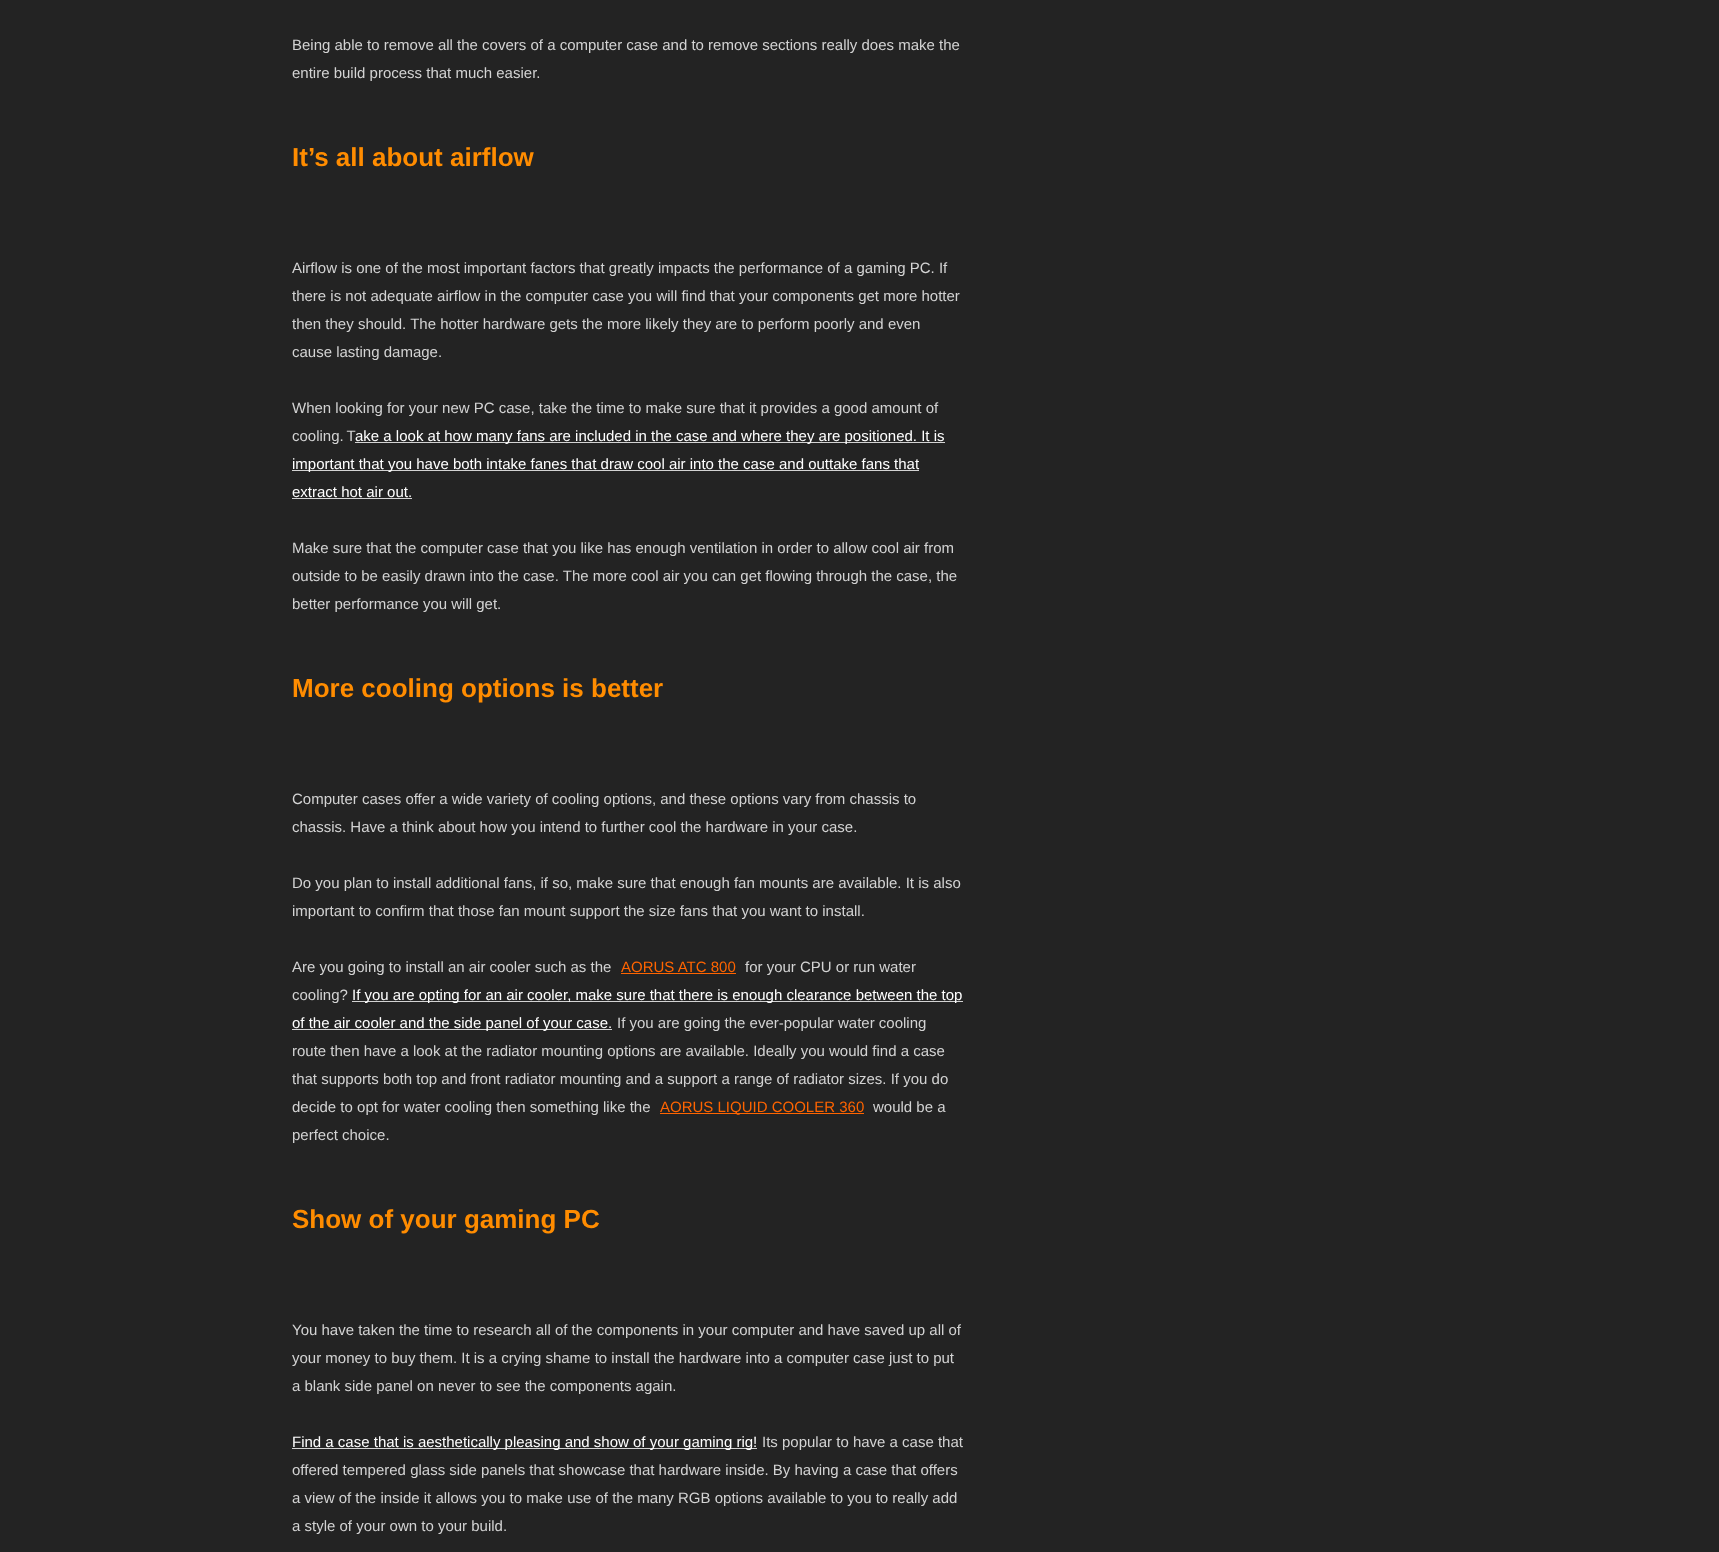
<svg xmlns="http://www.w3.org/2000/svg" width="1719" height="1552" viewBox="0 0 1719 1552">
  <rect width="100%" height="100%" fill="rgb(35,35,35)"/>
  <g font-family="Liberation Sans" font-size="15" fill="rgb(211,211,211)">
    <text>
      <tspan x="292" y="50">Being able to remove all the covers of a computer case and to remove sections really does make the</tspan>
      <tspan x="292" y="78">entire build process that much easier.</tspan>
    </text>
  </g>
  <text x="292" y="166" font-family="Liberation Sans" font-size="26" font-weight="bold" fill="rgb(255,140,0)">It’s all about airflow</text>
  <g font-family="Liberation Sans" font-size="15" fill="rgb(211,211,211)">
    <text>
      <tspan x="292" y="273">Airflow is one of the most important factors that greatly impacts the performance of a gaming PC. If</tspan>
      <tspan x="292" y="301">there is not adequate airflow in the computer case you will find that your components get more hotter</tspan>
      <tspan x="292" y="329">then they should. The hotter hardware gets the more likely they are to perform poorly and even</tspan>
      <tspan x="292" y="357">cause lasting damage.</tspan>
    </text>
    <text>
      <tspan x="292" y="413">When looking for your new PC case, take the time to make sure that it provides a good amount of</tspan>
      <tspan x="292" y="441" word-spacing="-1">cooling. T</tspan>
    </text>
  </g>
  <rect x="355" y="442" width="590" height="1" fill="rgb(211,211,211)"/>
  <text x="355" y="441" font-family="Liberation Sans" font-size="15" fill="rgb(255,255,255)">ake a look at how many fans are included in the case and where they are positioned. It is</text>
  <rect x="292" y="470" width="627" height="1" fill="rgb(211,211,211)"/>
  <g font-family="Liberation Sans" font-size="15" fill="rgb(255,255,255)">
    <text>
      <tspan x="292" y="469">important that you have both intake fanes that draw cool air into the case and outtake fans that</tspan>
      <tspan x="292" y="497">extract hot air out.</tspan>
    </text>
  </g>
  <rect x="292" y="498" width="120" height="1" fill="rgb(211,211,211)"/>
  <g font-family="Liberation Sans" font-size="15" fill="rgb(211,211,211)">
    <text>
      <tspan x="292" y="553">Make sure that the computer case that you like has enough ventilation in order to allow cool air from</tspan>
      <tspan x="292" y="581">outside to be easily drawn into the case. The more cool air you can get flowing through the case, the</tspan>
      <tspan x="292" y="609">better performance you will get.</tspan>
    </text>
  </g>
  <text x="292" y="697" font-family="Liberation Sans" font-size="26" font-weight="bold" fill="rgb(255,140,0)">More cooling options is better</text>
  <g font-family="Liberation Sans" font-size="15" fill="rgb(211,211,211)">
    <text>
      <tspan x="292" y="804">Computer cases offer a wide variety of cooling options, and these options vary from chassis to</tspan>
      <tspan x="292" y="832">chassis. Have a think about how you intend to further cool the hardware in your case.</tspan>
    </text>
    <text>
      <tspan x="292" y="888">Do you plan to install additional fans, if so, make sure that enough fan mounts are available. It is also</tspan>
      <tspan x="292" y="916">important to confirm that those fan mount support the size fans that you want to install.</tspan>
    </text>
    <text x="292" y="972">Are you going to install an air cooler such as the</text>
  </g>
  <text x="621" y="972" font-family="Liberation Sans" font-size="15" fill="rgb(255,100,0)">AORUS ATC 800</text>
  <rect x="621" y="973" width="115" height="1" fill="rgb(255,100,0)"/>
  <g font-family="Liberation Sans" font-size="15" fill="rgb(211,211,211)">
    <text x="745" y="972">for your CPU or run water</text>
    <text x="292" y="1000">cooling?</text>
  </g>
  <rect x="352" y="1001" width="611" height="1" fill="rgb(211,211,211)"/>
  <text x="352" y="1000" font-family="Liberation Sans" font-size="15" fill="rgb(255,255,255)">If you are opting for an air cooler, make sure that there is enough clearance between the top</text>
  <rect x="292" y="1029" width="320" height="1" fill="rgb(211,211,211)"/>
  <text x="292" y="1028" font-family="Liberation Sans" font-size="15" fill="rgb(255,255,255)">of the air cooler and the side panel of your case.</text>
  <g font-family="Liberation Sans" font-size="15" fill="rgb(211,211,211)">
    <text x="617" y="1028">If you are going the ever-popular water cooling</text>
    <text>
      <tspan x="292" y="1056">route then have a look at the radiator mounting options are available. Ideally you would find a case</tspan>
      <tspan x="292" y="1084">that supports both top and front radiator mounting and a support a range of radiator sizes. If you do</tspan>
      <tspan x="292" y="1112">decide to opt for water cooling then something like the</tspan>
    </text>
  </g>
  <rect x="660" y="1113" width="204" height="1" fill="rgb(255,100,0)"/>
  <text x="660" y="1112" font-family="Liberation Sans" font-size="15" fill="rgb(255,100,0)">AORUS LIQUID COOLER 360</text>
  <g font-family="Liberation Sans" font-size="15" fill="rgb(211,211,211)">
    <text x="873" y="1112">would be a</text>
    <text x="292" y="1140">perfect choice.</text>
  </g>
  <text x="292" y="1228" font-family="Liberation Sans" font-size="26" font-weight="bold" fill="rgb(255,140,0)">Show of your gaming PC</text>
  <g font-family="Liberation Sans" font-size="15" fill="rgb(211,211,211)">
    <text>
      <tspan x="292" y="1335">You have taken the time to research all of the components in your computer and have saved up all of</tspan>
      <tspan x="292" y="1363">your money to buy them. It is a crying shame to install the hardware into a computer case just to put</tspan>
      <tspan x="292" y="1391">a blank side panel on never to see the components again.</tspan>
    </text>
  </g>
  <rect x="292" y="1448" width="465" height="1" fill="rgb(211,211,211)"/>
  <text x="292" y="1447" font-family="Liberation Sans" font-size="15" fill="rgb(255,255,255)">Find a case that is aesthetically pleasing and show of your gaming rig!</text>
  <g font-family="Liberation Sans" font-size="15" fill="rgb(211,211,211)">
    <text x="762" y="1447">Its popular to have a case that</text>
    <text>
      <tspan x="292" y="1475">offered tempered glass side panels that showcase that hardware inside. By having a case that offers</tspan>
      <tspan x="292" y="1503">a view of the inside it allows you to make use of the many RGB options available to you to really add</tspan>
      <tspan x="292" y="1531">a style of your own to your build.</tspan>
    </text>
  </g>
</svg>
